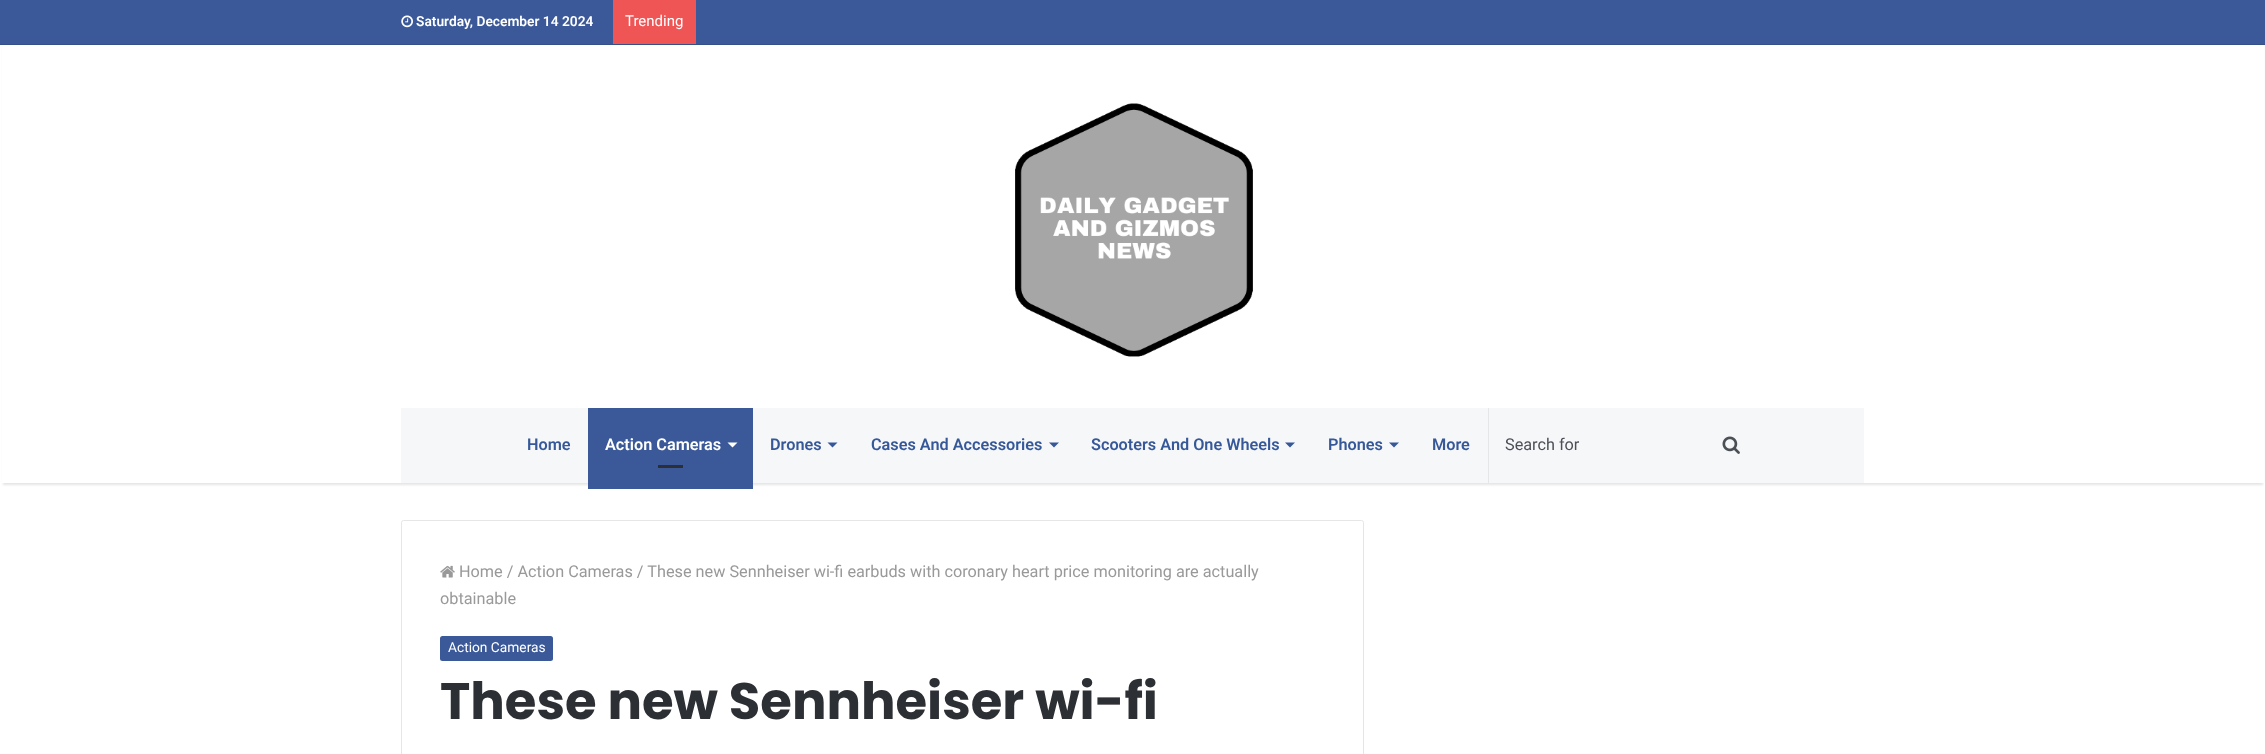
<svg xmlns="http://www.w3.org/2000/svg" width="2265" height="754" viewBox="0 0 2265 754">
  <rect width="100%" height="100%" fill="rgb(255,255,255)"/>
  <rect x="3" y="8" width="2260" height="477" fill="rgba(0,0,0,0.1)" filter="blur(1px)"/>
  <rect x="2" y="45" width="2262" height="438" fill="rgb(255,255,255)"/>
  <rect x="0" y="0" width="2265" height="44" fill="rgb(59,89,152)"/>
  <rect x="0" y="44" width="2265" height="1" fill="rgb(53,80,137)"/>
  <image x="401" y="15" width="12" height="13" href="pic1.png"/>
  <text x="416" y="26" font-family="Roboto" font-size="13.75" font-weight="600" fill="rgb(255,255,255)">Saturday, December 14 2024</text>
  <rect x="613" y="0" width="83" height="44" fill="rgb(240,85,85)"/>
  <text x="625" y="26" font-family="Roboto" font-size="15" fill="rgb(255,255,255)">Trending</text>
  <image x="1015" y="103" width="238" height="254" href="pic2.png"/>
  <rect x="401" y="408" width="1463" height="75" fill="rgb(246,247,249)"/>
  <text x="527" y="450" font-family="Roboto" font-size="16.25" font-weight="600" fill="rgb(54,88,153)">Home</text>
  <rect x="588" y="408" width="165" height="81" fill="rgb(59,89,152)"/>
  <text x="605" y="450" font-family="Roboto" font-size="16.25" font-weight="600" fill="rgb(255,255,255)">Action Cameras</text>
  <path d="M727.5 442.5H737.5L732.5 447.5Z" fill="rgb(255,255,255)"/>
  <rect x="658" y="465" width="25" height="3" fill="rgb(44,47,52)"/>
  <text x="770" y="450" font-family="Roboto" font-size="16.25" font-weight="600" fill="rgb(54,88,153)">Drones</text>
  <path d="M827.5 442.5H837.5L832.5 447.5Z" fill="rgb(54,88,153)"/>
  <text x="871" y="450" font-family="Roboto" font-size="16.25" font-weight="600" fill="rgb(54,88,153)">Cases And Accessories</text>
  <path d="M1049 442.5H1059L1054 447.5Z" fill="rgb(54,88,153)"/>
  <text x="1091" y="450" font-family="Roboto" font-size="16.25" font-weight="600" fill="rgb(54,88,153)">Scooters And One Wheels</text>
  <path d="M1285 442.5H1295L1290 447.5Z" fill="rgb(54,88,153)"/>
  <text x="1328" y="450" font-family="Roboto" font-size="16.25" font-weight="600" fill="rgb(54,88,153)">Phones</text>
  <path d="M1389 442.5H1399L1394 447.5Z" fill="rgb(54,88,153)"/>
  <text x="1432" y="450" font-family="Roboto" font-size="16.25" font-weight="600" fill="rgb(54,88,153)">More</text>
  <rect x="1488" y="408" width="1" height="75" fill="rgb(229,230,232)"/>
  <text x="1505" y="450" font-family="Roboto" font-size="16.25" fill="rgb(75,79,86)">Search for</text>
  <image x="1722" y="436" width="18" height="18" href="pic3.png"/>
  <rect x="401.5" y="520.5" width="962" height="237" rx="2" fill="none" stroke="rgb(230,230,230)"/>
  <image x="440" y="565" width="15" height="13" href="pic4.png"/>
  <g font-family="Roboto" font-size="16.25" fill="rgb(153,153,153)">
    <text x="459" y="577">Home / Action Cameras / These new Sennheiser wi-fi earbuds with coronary heart price monitoring are actually</text>
    <text x="440" y="604">obtainable</text>
  </g>
  <rect x="440" y="636" width="113" height="25" rx="2.5" fill="rgb(59,89,152)"/>
  <text x="448" y="652" font-family="Roboto" font-size="13.75" fill="rgb(255,255,255)">Action Cameras</text>
  <text x="440" y="719" font-family="Poppins" font-size="51.25" font-weight="bold" fill="rgb(44,47,52)">These new Sennheiser wi-fi</text>
</svg>
